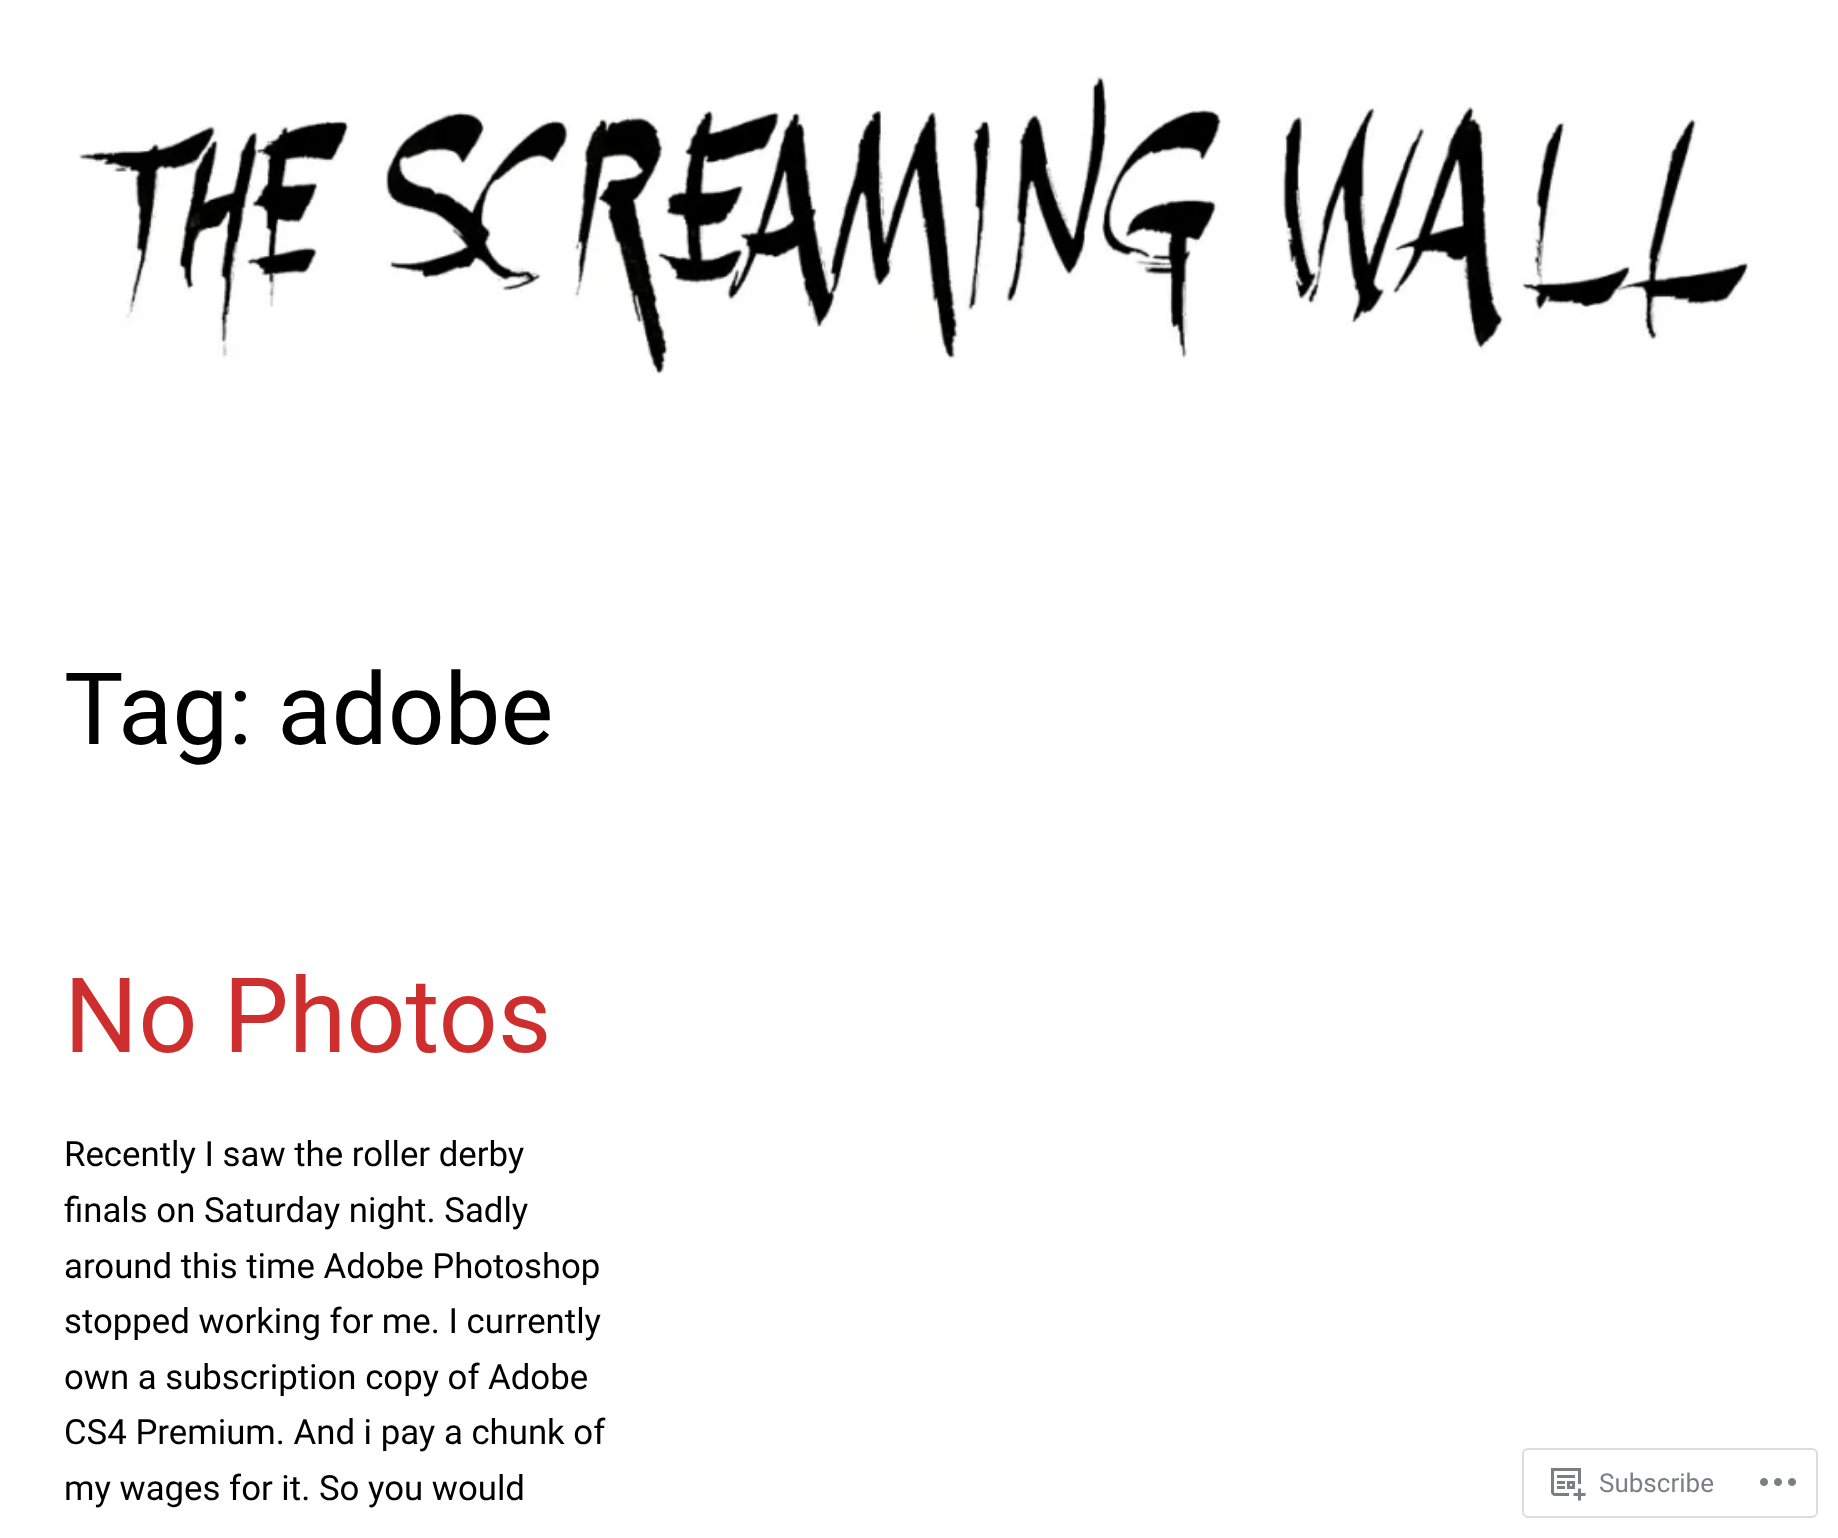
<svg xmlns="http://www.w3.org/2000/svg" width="1838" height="1538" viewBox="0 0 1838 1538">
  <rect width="100%" height="100%" fill="rgb(255,255,255)"/>
  <image x="78" y="76" width="1670" height="298" href="pic1.png"/>
  <text x="64" y="744" font-family="Roboto" font-size="99.75" fill="rgb(0,0,0)">Tag: adobe</text>
  <text x="64" y="1052" font-family="Roboto" font-size="104" fill="rgb(207,46,46)">No Photos</text>
  <g font-family="Roboto" font-size="34.75" fill="rgb(0,0,0)">
    <text>
      <tspan x="64" y="1166">Recently I saw the roller derby</tspan>
      <tspan x="64" y="1222">finals on Saturday night. Sadly</tspan>
      <tspan x="64" y="1278">around this time Adobe Photoshop</tspan>
      <tspan x="64" y="1333">stopped working for me. I currently</tspan>
      <tspan x="64" y="1389">own a subscription copy of Adobe</tspan>
      <tspan x="64" y="1444">CS4 Premium. And i pay a chunk of</tspan>
      <tspan x="64" y="1500">my wages for it. So you would</tspan>
    </text>
  </g>
  <rect x="1523" y="1449" width="294" height="68" rx="5" fill="none" stroke="rgb(221,221,223)" stroke-width="2"/>
  <image x="1551" y="1468" width="35" height="33" href="pic2.png"/>
  <text x="1599" y="1492" font-family="Roboto" font-size="26" fill="rgb(123,127,133)">Subscribe</text>
  <image x="1760" y="1478" width="36" height="8" href="pic3.png"/>
</svg>
